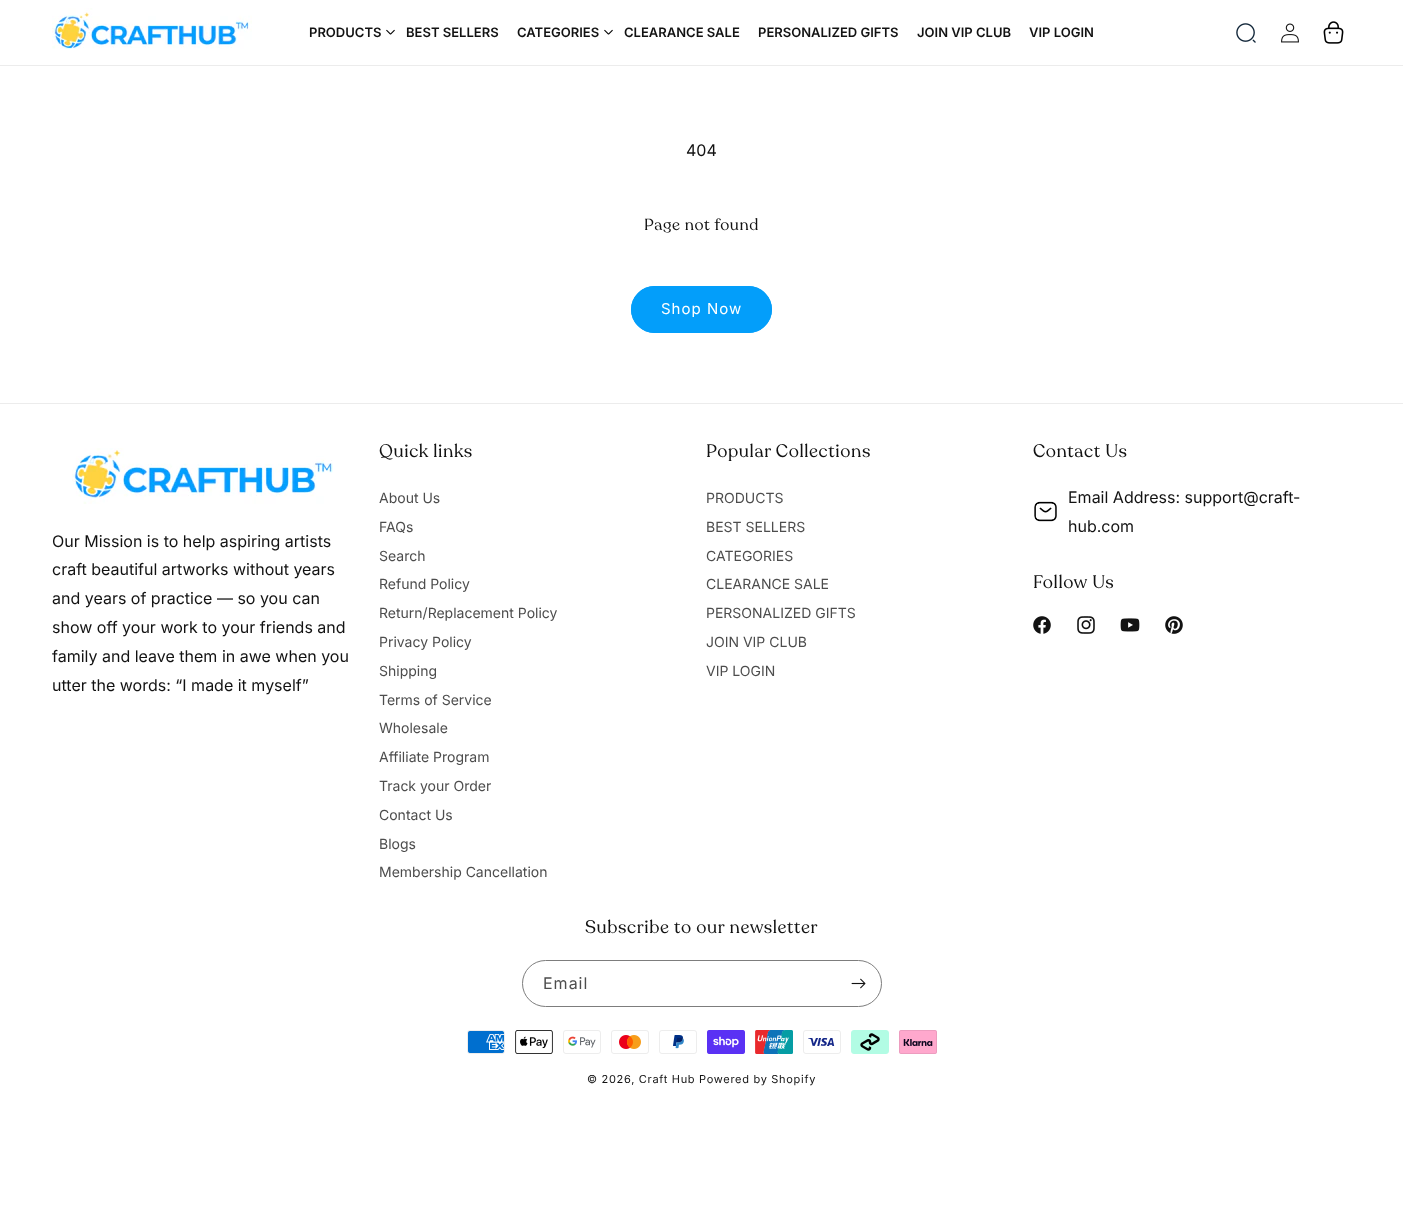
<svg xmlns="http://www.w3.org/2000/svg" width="1403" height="1224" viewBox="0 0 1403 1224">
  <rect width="100%" height="100%" fill="rgb(255,255,255)"/>
  <rect x="0" y="65" width="1403" height="1" fill="rgb(236,236,236)"/>
  <image x="52" y="8" width="200" height="41" href="pic1.png"/>
  <text x="309" y="37" font-family="Inter" font-size="13" font-weight="600" fill="rgb(18,18,18)">PRODUCTS</text>
  <image x="386" y="29" width="9" height="6" href="pic2.png"/>
  <g font-family="Inter" font-size="13" font-weight="600" fill="rgb(18,18,18)">
    <text x="406" y="37">BEST SELLERS</text>
    <text x="517" y="37">CATEGORIES</text>
  </g>
  <image x="604" y="29" width="9" height="6" href="pic2.png"/>
  <g font-family="Inter" font-size="13" font-weight="600" fill="rgb(18,18,18)">
    <text x="624" y="37">CLEARANCE SALE</text>
    <text x="758" y="37">PERSONALIZED GIFTS</text>
    <text x="917" y="37">JOIN VIP CLUB</text>
    <text x="1029" y="37">VIP LOGIN</text>
  </g>
  <image x="1236" y="23" width="20" height="20" href="pic3.png"/>
  <image x="1281" y="23" width="18" height="20" href="pic4.png"/>
  <image x="1323" y="21" width="21" height="23" href="pic5.png"/>
  <text x="686" y="156" font-family="Inter" font-size="16" fill="rgb(18,18,18)">404</text>
  <text x="644" y="230" font-family="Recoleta" font-size="16" letter-spacing="0.6" fill="rgb(18,18,18)">Page not found</text>
  <rect x="631" y="286" width="141" height="47" rx="23.5" fill="rgb(3,158,250)"/>
  <rect x="631.5" y="286.5" width="140" height="46" rx="23" fill="none" stroke="rgb(3,158,250)"/>
  <text x="661" y="314" font-family="Inter" font-size="15" letter-spacing="1" fill="rgb(255,255,255)">Shop Now</text>
  <rect x="0" y="403" width="1403" height="1" fill="rgb(236,236,236)"/>
  <text x="379" y="457" font-family="Recoleta" font-size="18" letter-spacing="0.6" fill="rgb(18,18,18)">Quick links</text>
  <g font-family="Inter" font-size="14" fill="rgb(77,77,77)">
    <text x="379" y="503">About Us</text>
    <text x="379" y="532">FAQs</text>
    <text x="379" y="561">Search</text>
    <text x="379" y="589">Refund Policy</text>
    <text x="379" y="618">Return/Replacement Policy</text>
    <text x="379" y="647">Privacy Policy</text>
    <text x="379" y="676">Shipping</text>
    <text x="379" y="705">Terms of Service</text>
    <text x="379" y="733">Wholesale</text>
    <text x="379" y="762">Affiliate Program</text>
    <text x="379" y="791">Track your Order</text>
    <text x="379" y="820">Contact Us</text>
    <text x="379" y="849">Blogs</text>
    <text x="379" y="877">Membership Cancellation</text>
  </g>
  <text x="706" y="457" font-family="Recoleta" font-size="18" letter-spacing="0.6" fill="rgb(18,18,18)">Popular Collections</text>
  <g font-family="Inter" font-size="14" fill="rgb(77,77,77)">
    <text x="706" y="503">PRODUCTS</text>
    <text x="706" y="532">BEST SELLERS</text>
    <text x="706" y="561">CATEGORIES</text>
    <text x="706" y="589">CLEARANCE SALE</text>
    <text x="706" y="618">PERSONALIZED GIFTS</text>
    <text x="706" y="647">JOIN VIP CLUB</text>
    <text x="706" y="676">VIP LOGIN</text>
  </g>
  <text x="1033" y="457" font-family="Recoleta" font-size="18" letter-spacing="0.6" fill="rgb(18,18,18)">Contact Us</text>
  <image x="1034" y="501" width="23" height="21" href="pic6.png"/>
  <g font-family="Inter" font-size="16" fill="rgb(18,18,18)">
    <text>
      <tspan x="1068" y="503">Email Address: support@craft-</tspan>
      <tspan x="1068" y="532">hub.com</tspan>
    </text>
  </g>
  <text x="1033" y="588" font-family="Recoleta" font-size="18" letter-spacing="0.6" fill="rgb(18,18,18)">Follow Us</text>
  <image x="1033" y="616" width="18" height="18" href="pic7.png"/>
  <image x="1077" y="616" width="18" height="18" href="pic8.png"/>
  <image x="1120" y="618" width="20" height="14" href="pic9.png"/>
  <image x="1165" y="616" width="18" height="18" href="pic10.png"/>
  <image x="72" y="448" width="261" height="56" href="pic11.png"/>
  <g font-family="Inter" font-size="16" fill="rgb(18,18,18)">
    <text>
      <tspan x="52" y="547">Our Mission is to help aspiring artists</tspan>
      <tspan x="52" y="575">craft beautiful artworks without years</tspan>
      <tspan x="52" y="604">and years of practice — so you can</tspan>
      <tspan x="52" y="633">show off your work to your friends and</tspan>
      <tspan x="52" y="662">family and leave them in awe when you</tspan>
      <tspan x="52" y="691">utter the words: “I made it myself”</tspan>
    </text>
  </g>
  <text x="585" y="933" font-family="Recoleta" font-size="18" letter-spacing="0.6" fill="rgb(18,18,18)">Subscribe to our newsletter</text>
  <rect x="522.5" y="960.5" width="359" height="46" rx="23" fill="none" stroke="rgb(125,125,125)"/>
  <text x="543" y="989" font-family="Inter" font-size="16" letter-spacing="1" fill="rgb(77,77,77)">Email</text>
  <image x="851" y="978" width="15" height="11" href="pic12.png"/>
  <image x="467" y="1030" width="38" height="24" href="pic13.png"/>
  <image x="515" y="1030" width="38" height="24" href="pic14.png"/>
  <image x="563" y="1030" width="38" height="24" href="pic15.png"/>
  <image x="611" y="1030" width="38" height="24" href="pic16.png"/>
  <image x="659" y="1030" width="38" height="24" href="pic17.png"/>
  <image x="707" y="1030" width="38" height="24" href="pic18.png"/>
  <image x="755" y="1030" width="38" height="24" href="pic19.png"/>
  <image x="803" y="1030" width="38" height="24" href="pic20.png"/>
  <image x="851" y="1030" width="38" height="24" href="pic21.png"/>
  <image x="899" y="1030" width="38" height="24" href="pic22.png"/>
  <text x="587" y="1083" font-family="Inter" font-size="11" letter-spacing="0.7" fill="rgb(18,18,18)">© 2026, Craft Hub Powered by Shopify</text>
</svg>
